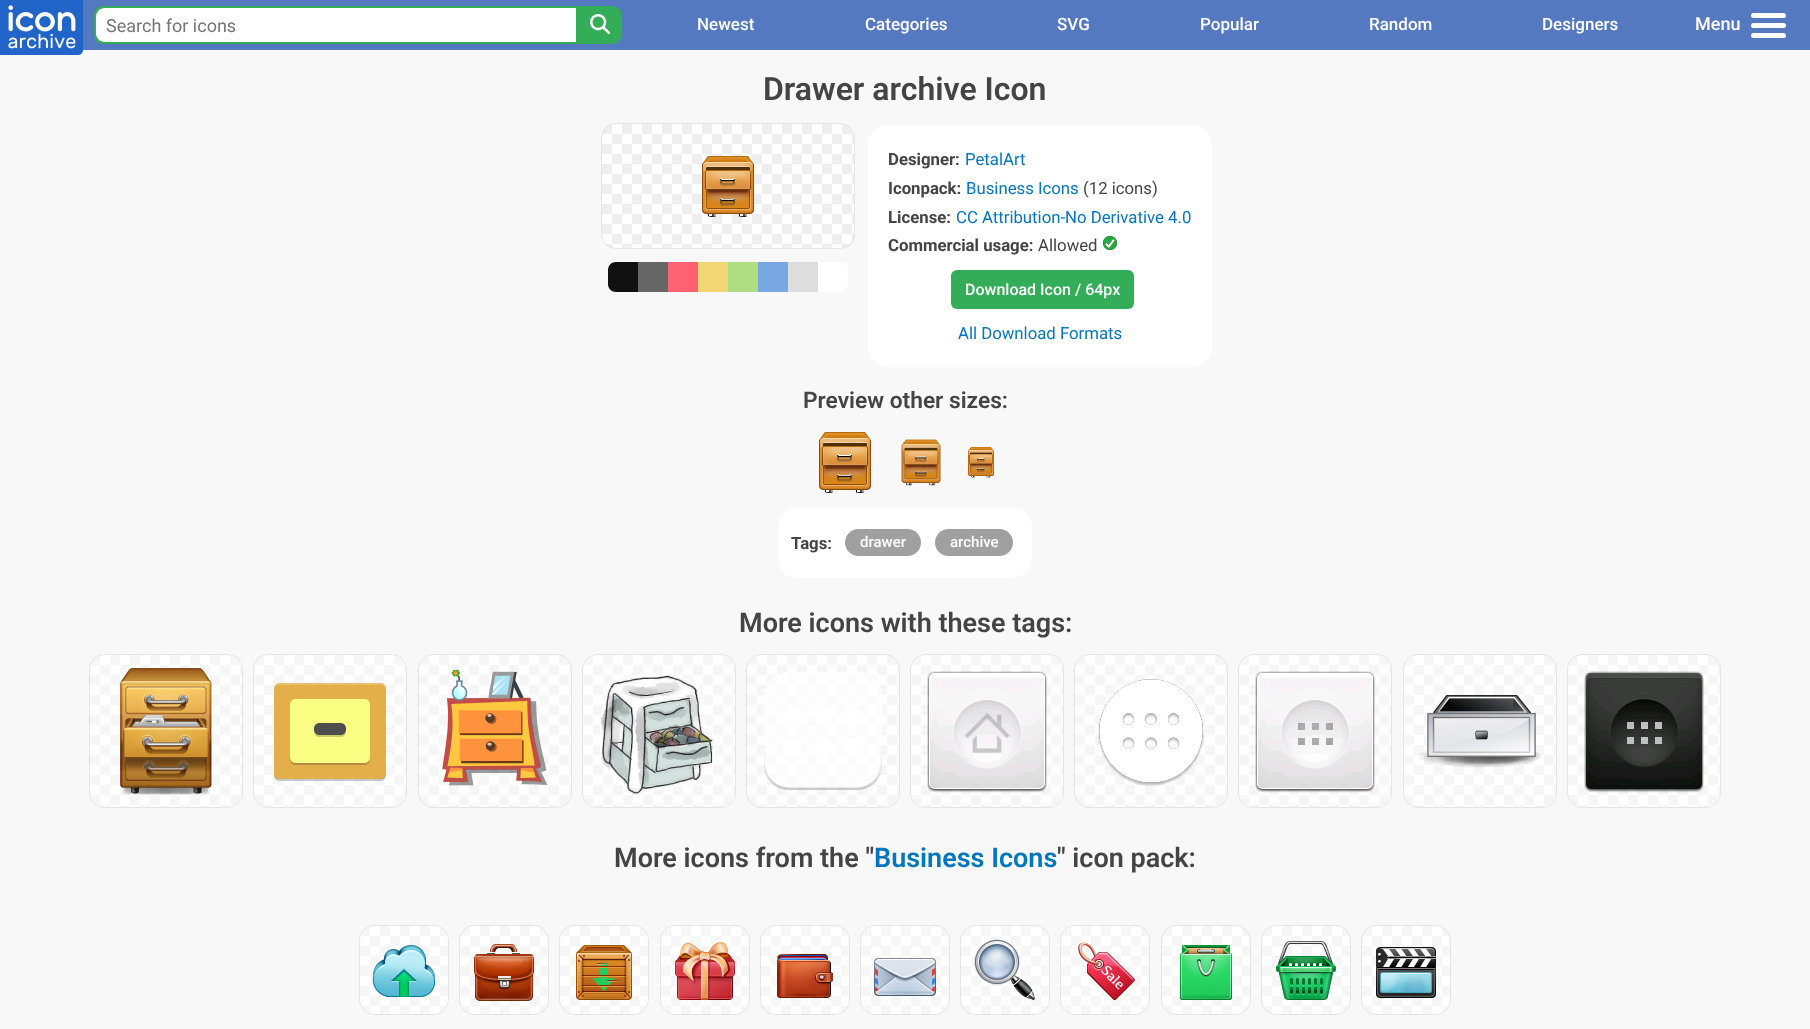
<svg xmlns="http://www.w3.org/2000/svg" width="1810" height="1029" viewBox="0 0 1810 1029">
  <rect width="100%" height="100%" fill="rgb(248,248,248)"/>
  <rect x="83" y="0" width="1727" height="50" fill="rgb(84,121,193)"/>
  <image x="0" y="0" width="83" height="55" href="pic1.png"/>
  <path d="M104 8H576V42H104C99.5 42 96 38.5 96 34V16C96 11.5 99.5 8 104 8Z" fill="rgb(255,255,255)"/>
  <path d="M104 6H576V44H104C98 44 94 40 94 34V16C94 10 98 6 104 6ZM104 8H576V42H104C100 42 96 38 96 34V16C96 12 100 8 104 8Z" fill="rgb(52,173,89)" fill-rule="evenodd"/>
  <text x="106" y="32" font-family="Roboto" font-size="18" fill="rgb(117,117,117)">Search for icons</text>
  <path d="M576 8H612C616.5 8 620 11.5 620 16V34C620 38.5 616.5 42 612 42H576Z" fill="rgb(52,173,89)"/>
  <path d="M576 6H612C618 6 622 10 622 16V34C622 40 618 44 612 44H576ZM576 8H606C621 8 620 11 620 25C620 39 621 42 606 42H576Z" fill="rgb(52,173,89)" fill-rule="evenodd"/>
  <image x="590" y="14" width="20" height="20" href="pic2.png"/>
  <g font-family="Roboto" font-size="17" font-weight="500" fill="rgb(255,255,255)">
    <text x="697" y="30">Newest</text>
    <text x="865" y="30">Categories</text>
    <text x="1057" y="30">SVG</text>
    <text x="1200" y="30">Popular</text>
    <text x="1369" y="30">Random</text>
    <text x="1542" y="30">Designers</text>
  </g>
  <text x="1695" y="30" font-family="Roboto" font-size="18" font-weight="500" fill="rgb(255,255,255)">Menu</text>
  <rect x="1751" y="13" width="35" height="5" rx="2.5" fill="rgb(255,255,255)"/>
  <rect x="1751" y="23" width="35" height="5" rx="2.5" fill="rgb(255,255,255)"/>
  <rect x="1751" y="33" width="35" height="5" rx="2.5" fill="rgb(255,255,255)"/>
  <text x="763" y="100" font-family="Roboto" font-size="32" font-weight="600" fill="rgb(68,68,68)">Drawer archive Icon</text>
  <image x="601" y="123" width="254" height="126" href="pic3.png"/>
  <rect x="601.5" y="123.5" width="253" height="125" rx="14.5" fill="none" stroke="rgb(229,229,229)"/>
  <image x="702" y="156" width="52" height="61" href="pic4.png"/>
  <path d="M616 262H638V292H616C611.5 292 608 288.5 608 284V270C608 265.5 611.5 262 616 262Z" fill="rgb(17,17,17)"/>
  <rect x="638" y="262" width="30" height="30" fill="rgb(102,102,102)"/>
  <rect x="668" y="262" width="30" height="30" fill="rgb(254,97,113)"/>
  <rect x="698" y="262" width="30" height="30" fill="rgb(243,215,118)"/>
  <rect x="728" y="262" width="30" height="30" fill="rgb(176,220,130)"/>
  <rect x="758" y="262" width="30" height="30" fill="rgb(121,167,228)"/>
  <rect x="788" y="262" width="30" height="30" fill="rgb(221,221,221)"/>
  <path d="M818 262H840C844.5 262 848 265.5 848 270V284C848 288.5 844.5 292 840 292H818Z" fill="rgb(255,255,255)"/>
  <rect x="868" y="125" width="344" height="242" rx="20" fill="rgb(255,255,255)"/>
  <text x="888" y="165" font-family="Roboto" font-size="16.75" font-weight="bold" fill="rgb(68,68,68)">Designer:</text>
  <text x="965" y="165" font-family="Roboto" font-size="16.75" fill="rgb(2,119,189)">PetalArt</text>
  <text x="888" y="194" font-family="Roboto" font-size="16.75" font-weight="bold" fill="rgb(68,68,68)">Iconpack:</text>
  <text x="966" y="194" font-family="Roboto" font-size="16.75" fill="rgb(2,119,189)">Business Icons</text>
  <text x="1083" y="194" font-family="Roboto" font-size="16.75" fill="rgb(68,68,68)">(12 icons)</text>
  <text x="888" y="223" font-family="Roboto" font-size="16.75" font-weight="bold" fill="rgb(68,68,68)">License:</text>
  <text x="956" y="223" font-family="Roboto" font-size="16.75" fill="rgb(2,119,189)">CC Attribution-No Derivative 4.0</text>
  <text x="888" y="251" font-family="Roboto" font-size="16.75" font-weight="bold" fill="rgb(68,68,68)">Commercial usage:</text>
  <text x="1038" y="251" font-family="Roboto" font-size="16.75" fill="rgb(68,68,68)">Allowed</text>
  <image x="1103" y="236" width="14" height="14" href="pic5.png"/>
  <rect x="951" y="270" width="183" height="39" rx="6" fill="rgb(52,173,89)"/>
  <text x="965" y="295" font-family="Roboto" font-size="16" font-weight="500" fill="rgb(255,255,255)">Download Icon / 64px</text>
  <text x="958" y="339" font-family="Roboto" font-size="16.75" fill="rgb(2,119,189)">All Download Formats</text>
  <text x="803" y="408" font-family="Roboto" font-size="22.75" font-weight="600" fill="rgb(68,68,68)">Preview other sizes:</text>
  <image x="819" y="432" width="52" height="61" href="pic6.png"/>
  <image x="901" y="439" width="40" height="47" href="pic7.png"/>
  <image x="968" y="447" width="26" height="31" href="pic8.png"/>
  <rect x="778" y="507" width="254" height="71" rx="20" fill="rgb(255,255,255)"/>
  <text x="791" y="549" font-family="Roboto" font-size="16.75" font-weight="bold" fill="rgb(68,68,68)">Tags:</text>
  <rect x="845" y="529" width="76" height="27" rx="13.5" fill="rgb(160,160,160)"/>
  <text x="860" y="547" font-family="Roboto" font-size="15" font-weight="500" fill="rgb(255,255,255)">drawer</text>
  <rect x="935" y="529" width="78" height="27" rx="13.5" fill="rgb(160,160,160)"/>
  <text x="950" y="547" font-family="Roboto" font-size="15" font-weight="500" fill="rgb(255,255,255)">archive</text>
  <text x="739" y="632" font-family="Roboto" font-size="27" font-weight="600" fill="rgb(68,68,68)">More icons with these tags:</text>
  <image x="89" y="654" width="154" height="154" href="pic9.png"/>
  <rect x="89.5" y="654.5" width="153" height="153" rx="14.5" fill="none" stroke="rgb(229,229,229)"/>
  <image x="120" y="668" width="92" height="127" href="pic10.png"/>
  <image x="253" y="654" width="154" height="154" href="pic11.png"/>
  <rect x="253.5" y="654.5" width="153" height="153" rx="14.5" fill="none" stroke="rgb(229,229,229)"/>
  <image x="274" y="683" width="112" height="98" href="pic12.png"/>
  <image x="418" y="654" width="154" height="154" href="pic9.png"/>
  <rect x="418.5" y="654.5" width="153" height="153" rx="14.5" fill="none" stroke="rgb(229,229,229)"/>
  <image x="442" y="669" width="106" height="117" href="pic13.png"/>
  <image x="582" y="654" width="154" height="154" href="pic9.png"/>
  <rect x="582.5" y="654.5" width="153" height="153" rx="14.5" fill="none" stroke="rgb(229,229,229)"/>
  <image x="600" y="673" width="116" height="122" href="pic14.png"/>
  <image x="746" y="654" width="154" height="154" href="pic9.png"/>
  <rect x="746.5" y="654.5" width="153" height="153" rx="14.5" fill="none" stroke="rgb(229,229,229)"/>
  <image x="764" y="672" width="118" height="118" href="pic15.png"/>
  <image x="910" y="654" width="154" height="154" href="pic9.png"/>
  <rect x="910.5" y="654.5" width="153" height="153" rx="14.5" fill="none" stroke="rgb(229,229,229)"/>
  <image x="927" y="671" width="120" height="122" href="pic16.png"/>
  <image x="1074" y="654" width="154" height="154" href="pic9.png"/>
  <rect x="1074.5" y="654.5" width="153" height="153" rx="14.5" fill="none" stroke="rgb(229,229,229)"/>
  <image x="1098" y="679" width="106" height="107" href="pic17.png"/>
  <image x="1238" y="654" width="154" height="154" href="pic9.png"/>
  <rect x="1238.5" y="654.5" width="153" height="153" rx="14.5" fill="none" stroke="rgb(229,229,229)"/>
  <image x="1255" y="671" width="120" height="122" href="pic18.png"/>
  <image x="1403" y="654" width="154" height="154" href="pic9.png"/>
  <rect x="1403.5" y="654.5" width="153" height="153" rx="14.5" fill="none" stroke="rgb(229,229,229)"/>
  <image x="1418" y="695" width="124" height="73" href="pic19.png"/>
  <image x="1567" y="654" width="154" height="154" href="pic9.png"/>
  <rect x="1567.5" y="654.5" width="153" height="153" rx="14.5" fill="none" stroke="rgb(229,229,229)"/>
  <image x="1584" y="671" width="120" height="122" href="pic20.png"/>
  <text x="614" y="867" font-family="Roboto" font-size="27" font-weight="600" fill="rgb(68,68,68)">More icons from the "</text>
  <text x="874" y="867" font-family="Roboto" font-size="27" font-weight="600" fill="rgb(2,119,189)">Business Icons</text>
  <text x="1057" y="867" font-family="Roboto" font-size="27" font-weight="600" fill="rgb(68,68,68)">" icon pack:</text>
  <image x="359" y="925" width="90" height="90" href="pic21.png"/>
  <rect x="359.5" y="925.5" width="89" height="89" rx="14.5" fill="none" stroke="rgb(229,229,229)"/>
  <image x="372" y="945" width="63" height="52" href="pic22.png"/>
  <image x="459" y="925" width="90" height="90" href="pic21.png"/>
  <rect x="459.5" y="925.5" width="89" height="89" rx="14.5" fill="none" stroke="rgb(229,229,229)"/>
  <image x="473" y="944" width="62" height="57" href="pic23.png"/>
  <image x="559" y="925" width="90" height="90" href="pic21.png"/>
  <rect x="559.5" y="925.5" width="89" height="89" rx="14.5" fill="none" stroke="rgb(229,229,229)"/>
  <image x="576" y="945" width="56" height="55" href="pic24.png"/>
  <image x="660" y="925" width="90" height="90" href="pic21.png"/>
  <rect x="660.5" y="925.5" width="89" height="89" rx="14.5" fill="none" stroke="rgb(229,229,229)"/>
  <image x="675" y="942" width="60" height="58" href="pic25.png"/>
  <image x="760" y="925" width="90" height="90" href="pic26.png"/>
  <rect x="760.5" y="925.5" width="89" height="89" rx="14.5" fill="none" stroke="rgb(229,229,229)"/>
  <image x="777" y="954" width="56" height="44" href="pic27.png"/>
  <image x="860" y="925" width="90" height="90" href="pic21.png"/>
  <rect x="860.5" y="925.5" width="89" height="89" rx="14.5" fill="none" stroke="rgb(229,229,229)"/>
  <image x="874" y="958" width="62" height="38" href="pic28.png"/>
  <image x="960" y="925" width="90" height="90" href="pic21.png"/>
  <rect x="960.5" y="925.5" width="89" height="89" rx="14.5" fill="none" stroke="rgb(229,229,229)"/>
  <image x="974" y="939" width="61" height="61" href="pic29.png"/>
  <image x="1060" y="925" width="90" height="90" href="pic21.png"/>
  <rect x="1060.5" y="925.5" width="89" height="89" rx="14.5" fill="none" stroke="rgb(229,229,229)"/>
  <image x="1078" y="942" width="57" height="58" href="pic30.png"/>
  <image x="1161" y="925" width="90" height="90" href="pic21.png"/>
  <rect x="1161.5" y="925.5" width="89" height="89" rx="14.5" fill="none" stroke="rgb(229,229,229)"/>
  <image x="1179" y="945" width="53" height="55" href="pic31.png"/>
  <image x="1261" y="925" width="90" height="90" href="pic32.png"/>
  <rect x="1261.5" y="925.5" width="89" height="89" rx="14.5" fill="none" stroke="rgb(229,229,229)"/>
  <image x="1276" y="941" width="60" height="59" href="pic33.png"/>
  <image x="1361" y="925" width="90" height="90" href="pic21.png"/>
  <rect x="1361.5" y="925.5" width="89" height="89" rx="14.5" fill="none" stroke="rgb(229,229,229)"/>
  <image x="1376" y="947" width="60" height="51" href="pic34.png"/>
</svg>
